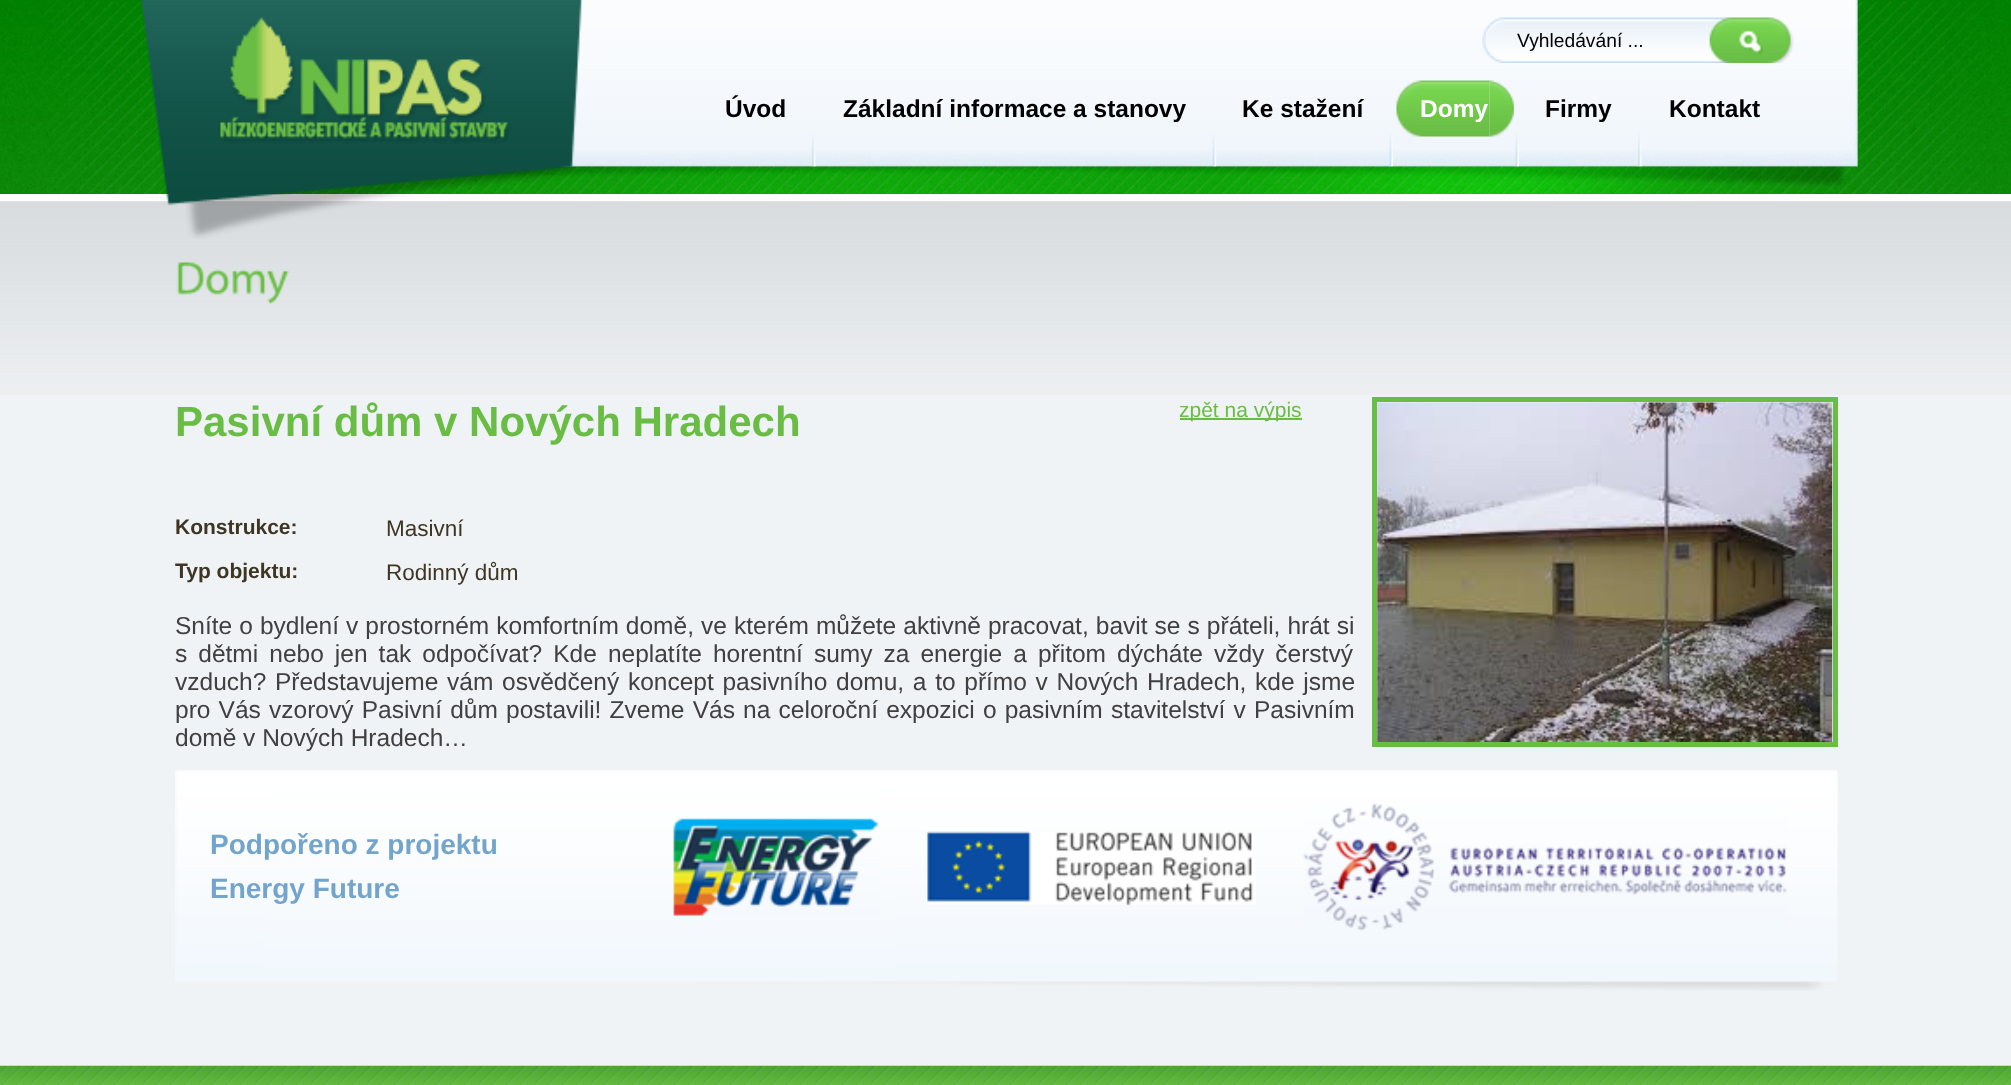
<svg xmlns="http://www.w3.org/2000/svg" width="2011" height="1085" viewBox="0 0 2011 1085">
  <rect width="100%" height="100%" fill="rgb(255,255,255)"/>
  <image x="0" y="0" width="2011" height="194" href="pic1.png"/>
  <rect x="0" y="201" width="2011" height="865" fill="rgb(240,243,245)"/>
  <image x="0" y="201" width="2011" height="194" href="pic13.png"/>
  <image x="140" y="0" width="443" height="239" href="pic2.png"/>
  <image x="1482" y="17" width="225" height="46" href="pic3.png"/>
  <text x="1517" y="47" font-family="Liberation Sans" font-size="19.25" fill="rgb(0,0,0)">Vyhledávání ...</text>
  <image x="1706" y="17" width="88" height="46" href="pic4.png"/>
  <g font-family="Liberation Sans" font-size="24.5" font-weight="bold" fill="rgb(0,0,0)">
    <text x="725" y="117">Úvod</text>
    <text x="843" y="117">Základní informace a stanovy</text>
    <text x="1242" y="117">Ke stažení</text>
  </g>
  <image x="1396" y="80" width="25" height="57" href="pic5.png"/>
  <image x="1421" y="80" width="69" height="57" href="pic6.png"/>
  <image x="1489" y="80" width="25" height="57" href="pic7.png"/>
  <text x="1420" y="117" font-family="Liberation Sans" font-size="24.5" font-weight="bold" fill="rgb(255,255,255)">Domy</text>
  <g font-family="Liberation Sans" font-size="24.5" font-weight="bold" fill="rgb(0,0,0)">
    <text x="1545" y="117">Firmy</text>
    <text x="1669" y="117">Kontakt</text>
  </g>
  <image x="812" y="133" width="4" height="34" href="pic8.png"/>
  <image x="1212" y="133" width="5" height="34" href="pic9.png"/>
  <image x="1389" y="134" width="4" height="33" href="pic10.png"/>
  <image x="1515" y="134" width="4" height="33" href="pic11.png"/>
  <image x="1638" y="133" width="4" height="34" href="pic12.png"/>
  <image x="176" y="262" width="114" height="43" href="pic14.png"/>
  <text x="175" y="436" font-family="Liberation Sans" font-size="42" font-weight="bold" fill="rgb(105,189,69)">Pasivní dům v Nových Hradech</text>
  <rect x="1180" y="418" width="122" height="2" fill="rgb(105,189,69)"/>
  <text x="1179" y="417" font-family="Liberation Sans" font-size="21" fill="rgb(105,189,69)">zpět na výpis</text>
  <rect x="1374.5" y="399.5" width="461" height="345" fill="none" stroke="rgb(105,189,69)" stroke-width="5"/>
  <image x="1377" y="402" width="456" height="340" href="pic15.png"/>
  <text x="175" y="534" font-family="Liberation Sans" font-size="21" font-weight="bold" fill="rgb(62,53,36)">Konstrukce:</text>
  <text x="386" y="536" font-family="Liberation Sans" font-size="22.5" fill="rgb(62,53,36)">Masivní</text>
  <text x="175" y="578" font-family="Liberation Sans" font-size="21" font-weight="bold" fill="rgb(62,53,36)">Typ objektu:</text>
  <text x="386" y="580" font-family="Liberation Sans" font-size="22.5" fill="rgb(62,53,36)">Rodinný dům</text>
  <g font-family="Liberation Sans" font-size="24.5" fill="rgb(64,64,65)">
    <text>
      <tspan x="175" y="634" word-spacing="0.25">Sníte o bydlení v prostorném komfortním domě, ve kterém můžete aktivně pracovat, bavit se s přáteli, hrát si</tspan>
      <tspan x="175" y="662" word-spacing="4.25">s dětmi nebo jen tak odpočívat? Kde neplatíte horentní sumy za energie a přitom dýcháte vždy čerstvý</tspan>
      <tspan x="175" y="690" word-spacing="1.9">vzduch? Představujeme vám osvědčený koncept pasivního domu, a to přímo v Nových Hradech, kde jsme</tspan>
      <tspan x="175" y="718" word-spacing="1.4">pro Vás vzorový Pasivní dům postavili! Zveme Vás na celoroční expozici o pasivním stavitelství v Pasivním</tspan>
      <tspan x="175" y="746">domě v Nových Hradech…</tspan>
    </text>
  </g>
  <image x="175" y="770" width="1663" height="221" href="pic16.png"/>
  <g font-family="Liberation Sans" font-size="28" font-weight="bold" fill="rgb(115,164,204)">
    <text>
      <tspan x="210" y="854">Podpořeno z projektu</tspan>
      <tspan x="210" y="898">Energy Future</tspan>
    </text>
  </g>
  <image x="673" y="818" width="206" height="98" href="pic17.png"/>
  <image x="926" y="831" width="330" height="75" href="pic18.png"/>
  <image x="1303" y="803" width="484" height="128" href="pic19.png"/>
  <image x="0" y="1065" width="2011" height="20" href="pic20.png"/>
</svg>
